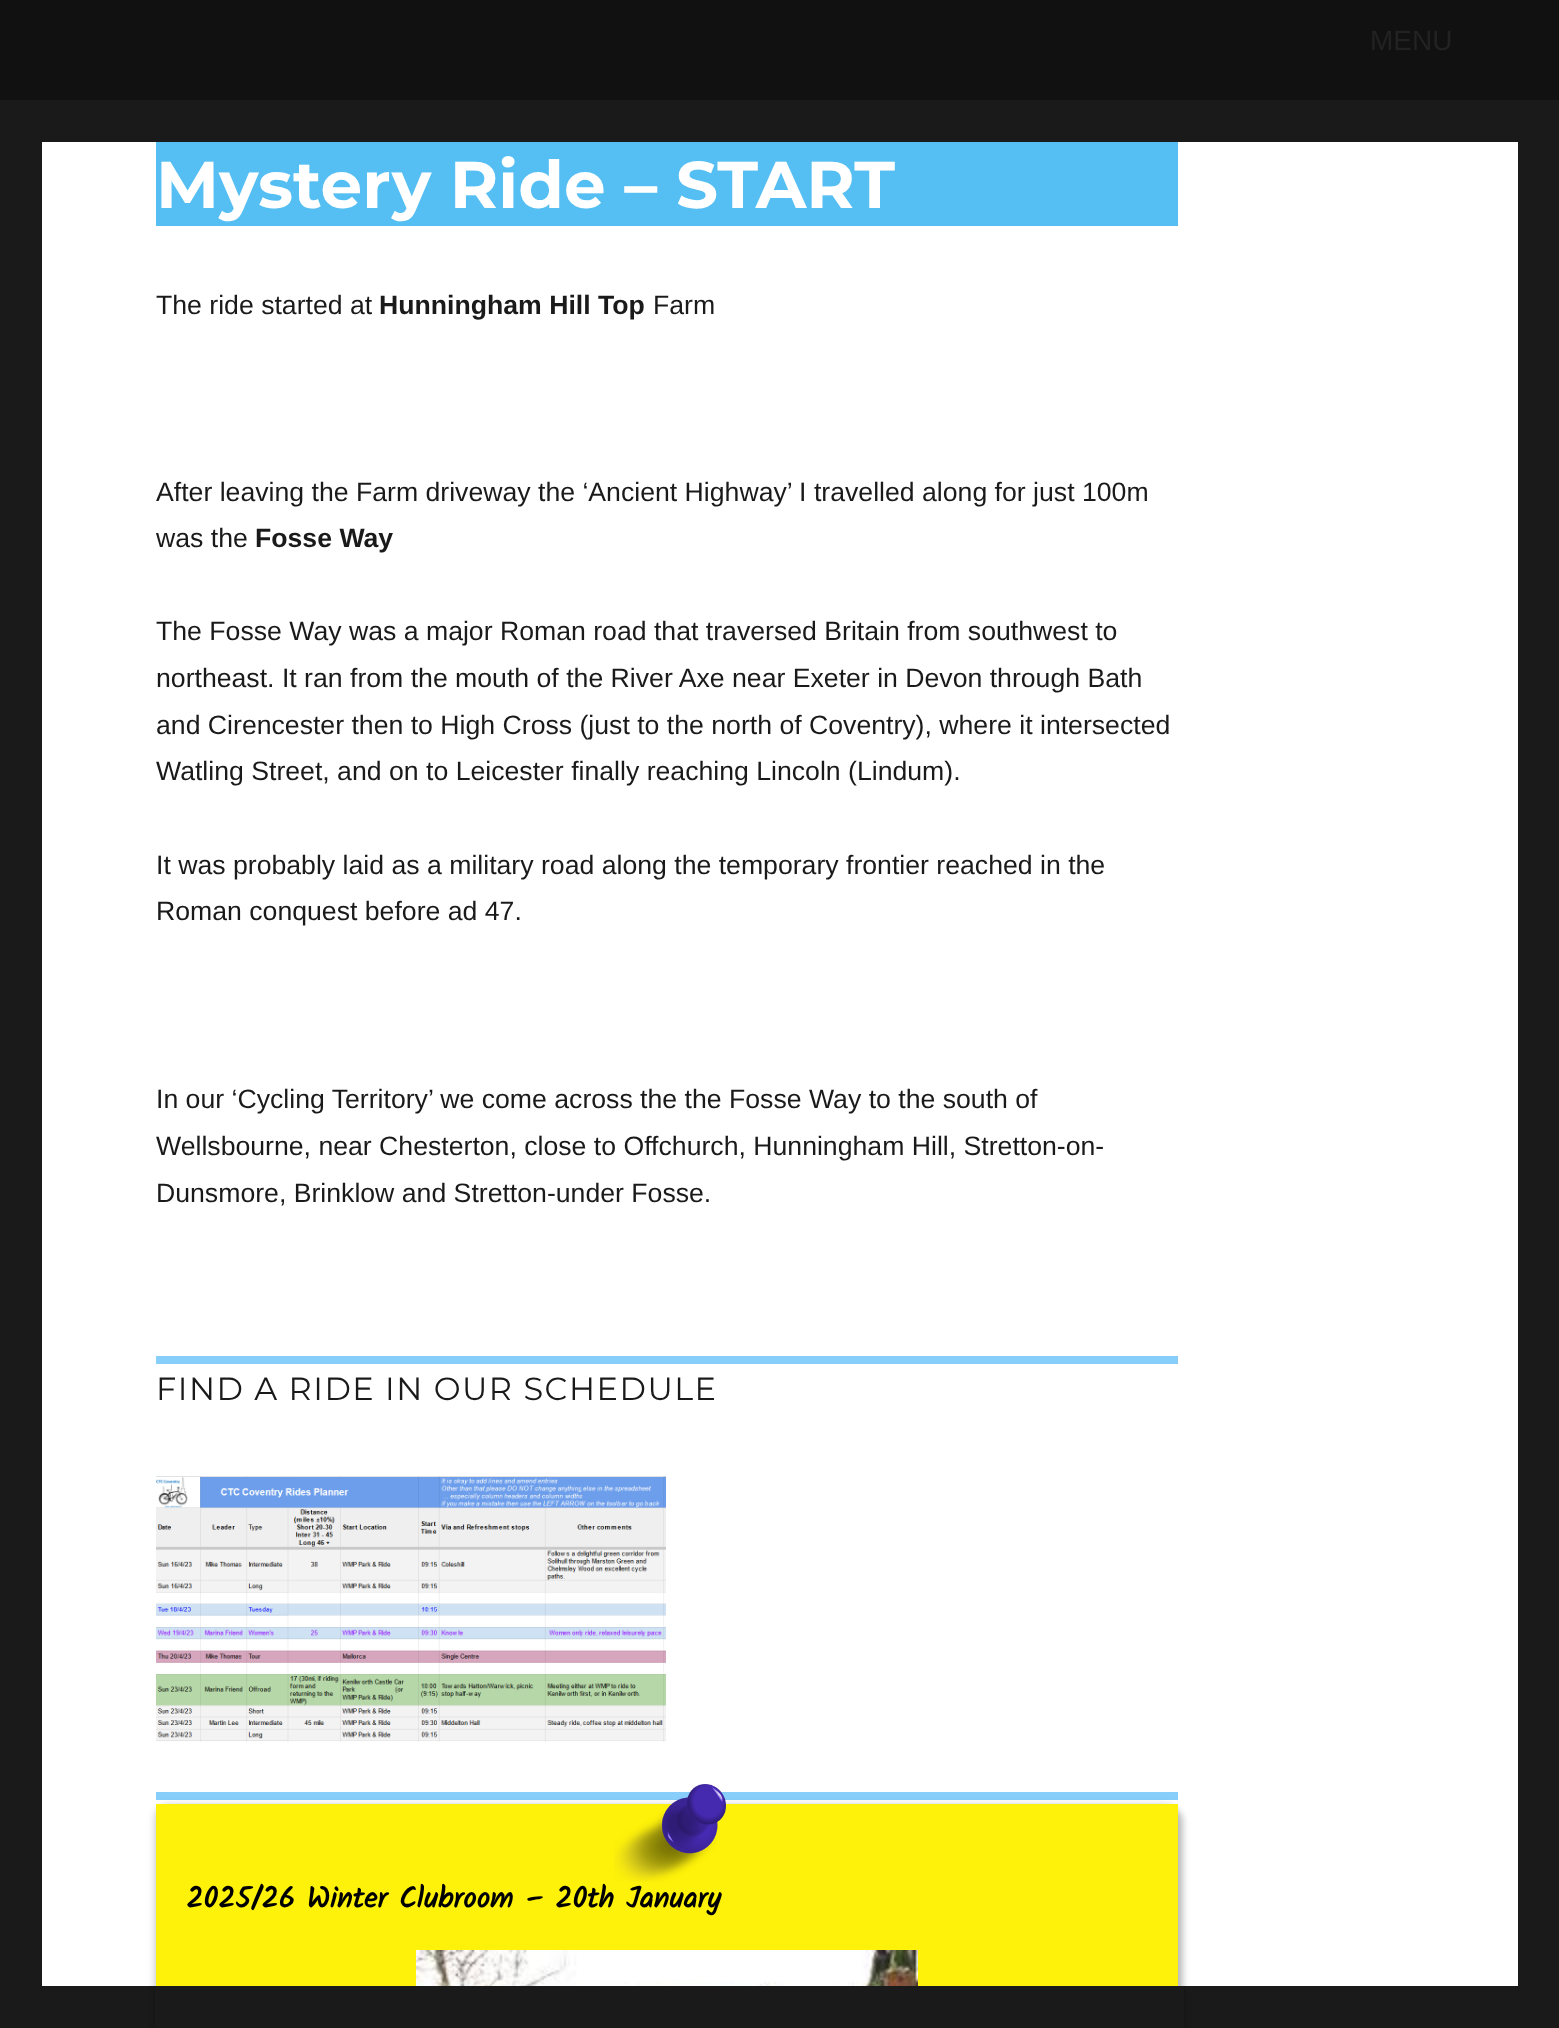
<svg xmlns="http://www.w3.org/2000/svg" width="1559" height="2028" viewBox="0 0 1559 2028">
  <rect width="100%" height="100%" fill="rgb(26,26,26)"/>
  <rect x="0" y="0" width="1559" height="100" fill="rgb(17,17,17)"/>
  <text x="1370" y="50" font-family="Liberation Sans" font-size="28" fill="rgb(34,34,34)">MENU</text>
  <rect x="42" y="142" width="1476" height="1844" fill="rgb(255,255,255)"/>
  <rect x="156" y="142" width="1022" height="84" fill="rgb(85,190,242)"/>
  <text x="156" y="208" font-family="'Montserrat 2'" font-size="66" font-weight="100" fill="rgb(255,255,255)">Mystery Ride – START</text>
  <text x="156" y="314" font-family="Liberation Sans" font-size="26.65" fill="rgb(26,26,26)">The ride started at</text>
  <text x="379" y="314" font-family="Liberation Sans" font-size="26.65" font-weight="bold" fill="rgb(26,26,26)">Hunningham Hill Top</text>
  <g font-family="Liberation Sans" font-size="26.65" fill="rgb(26,26,26)">
    <text x="653" y="314">Farm</text>
    <text>
      <tspan x="156" y="501">After leaving the Farm driveway the ‘Ancient Highway’ I travelled along for just 100m</tspan>
      <tspan x="156" y="547">was the</tspan>
    </text>
  </g>
  <text x="255" y="547" font-family="Liberation Sans" font-size="26.65" font-weight="bold" fill="rgb(26,26,26)">Fosse Way</text>
  <g font-family="Liberation Sans" font-size="26.65" fill="rgb(26,26,26)">
    <text>
      <tspan x="156" y="640">The Fosse Way was a major Roman road that traversed Britain from southwest to</tspan>
      <tspan x="156" y="687">northeast. It ran from the mouth of the River Axe near Exeter in Devon through Bath</tspan>
      <tspan x="156" y="734">and Cirencester then to High Cross (just to the north of Coventry), where it intersected</tspan>
      <tspan x="156" y="780">Watling Street, and on to Leicester finally reaching Lincoln (Lindum).</tspan>
    </text>
    <text>
      <tspan x="156" y="874">It was probably laid as a military road along the temporary frontier reached in the</tspan>
      <tspan x="156" y="920">Roman conquest before ad 47.</tspan>
    </text>
    <text>
      <tspan x="156" y="1108">In our ‘Cycling Territory’ we come across the the Fosse Way to the south of</tspan>
      <tspan x="156" y="1155">Wellsbourne, near Chesterton, close to Offchurch, Hunningham Hill, Stretton-on-</tspan>
      <tspan x="156" y="1202">Dunsmore, Brinklow and Stretton-under Fosse.</tspan>
    </text>
  </g>
  <rect x="156" y="1356" width="1022" height="8" fill="rgb(135,206,250)"/>
  <text x="156" y="1400" font-family="Montserrat" font-size="32" font-weight="100" letter-spacing="1.5" fill="rgb(26,26,26)">FIND A RIDE IN OUR SCHEDULE</text>
  <image x="156" y="1476" width="510" height="266" href="pic1.png"/>
  <rect x="156" y="1792" width="1022" height="8" fill="rgb(135,206,250)"/>
  <rect x="162" y="1810" width="1022" height="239" rx="12" fill="rgba(0,0,0,0.15)" filter="blur(3px)"/>
  <rect x="156" y="1806" width="1022" height="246" rx="12" fill="rgba(0,0,0,0.27)" filter="blur(4px)"/>
  <path d="M156 1804H1178V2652C1178 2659 1071 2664 938 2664H396C263 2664 156 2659 156 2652Z" fill="rgb(254,242,10)"/>
  <image x="614" y="1784" width="112" height="98" href="pic2.png"/>
  <text x="186" y="1908" font-family="Kalam" font-size="29.5" font-weight="bold" fill="rgb(0,0,0)">2025/26 Winter Clubroom – 20th January</text>
  <image x="416" y="1950" width="502" height="36" href="pic3.png"/>
  <rect x="155" y="1986" width="1029" height="42" fill="rgb(26,26,26)"/>
</svg>
